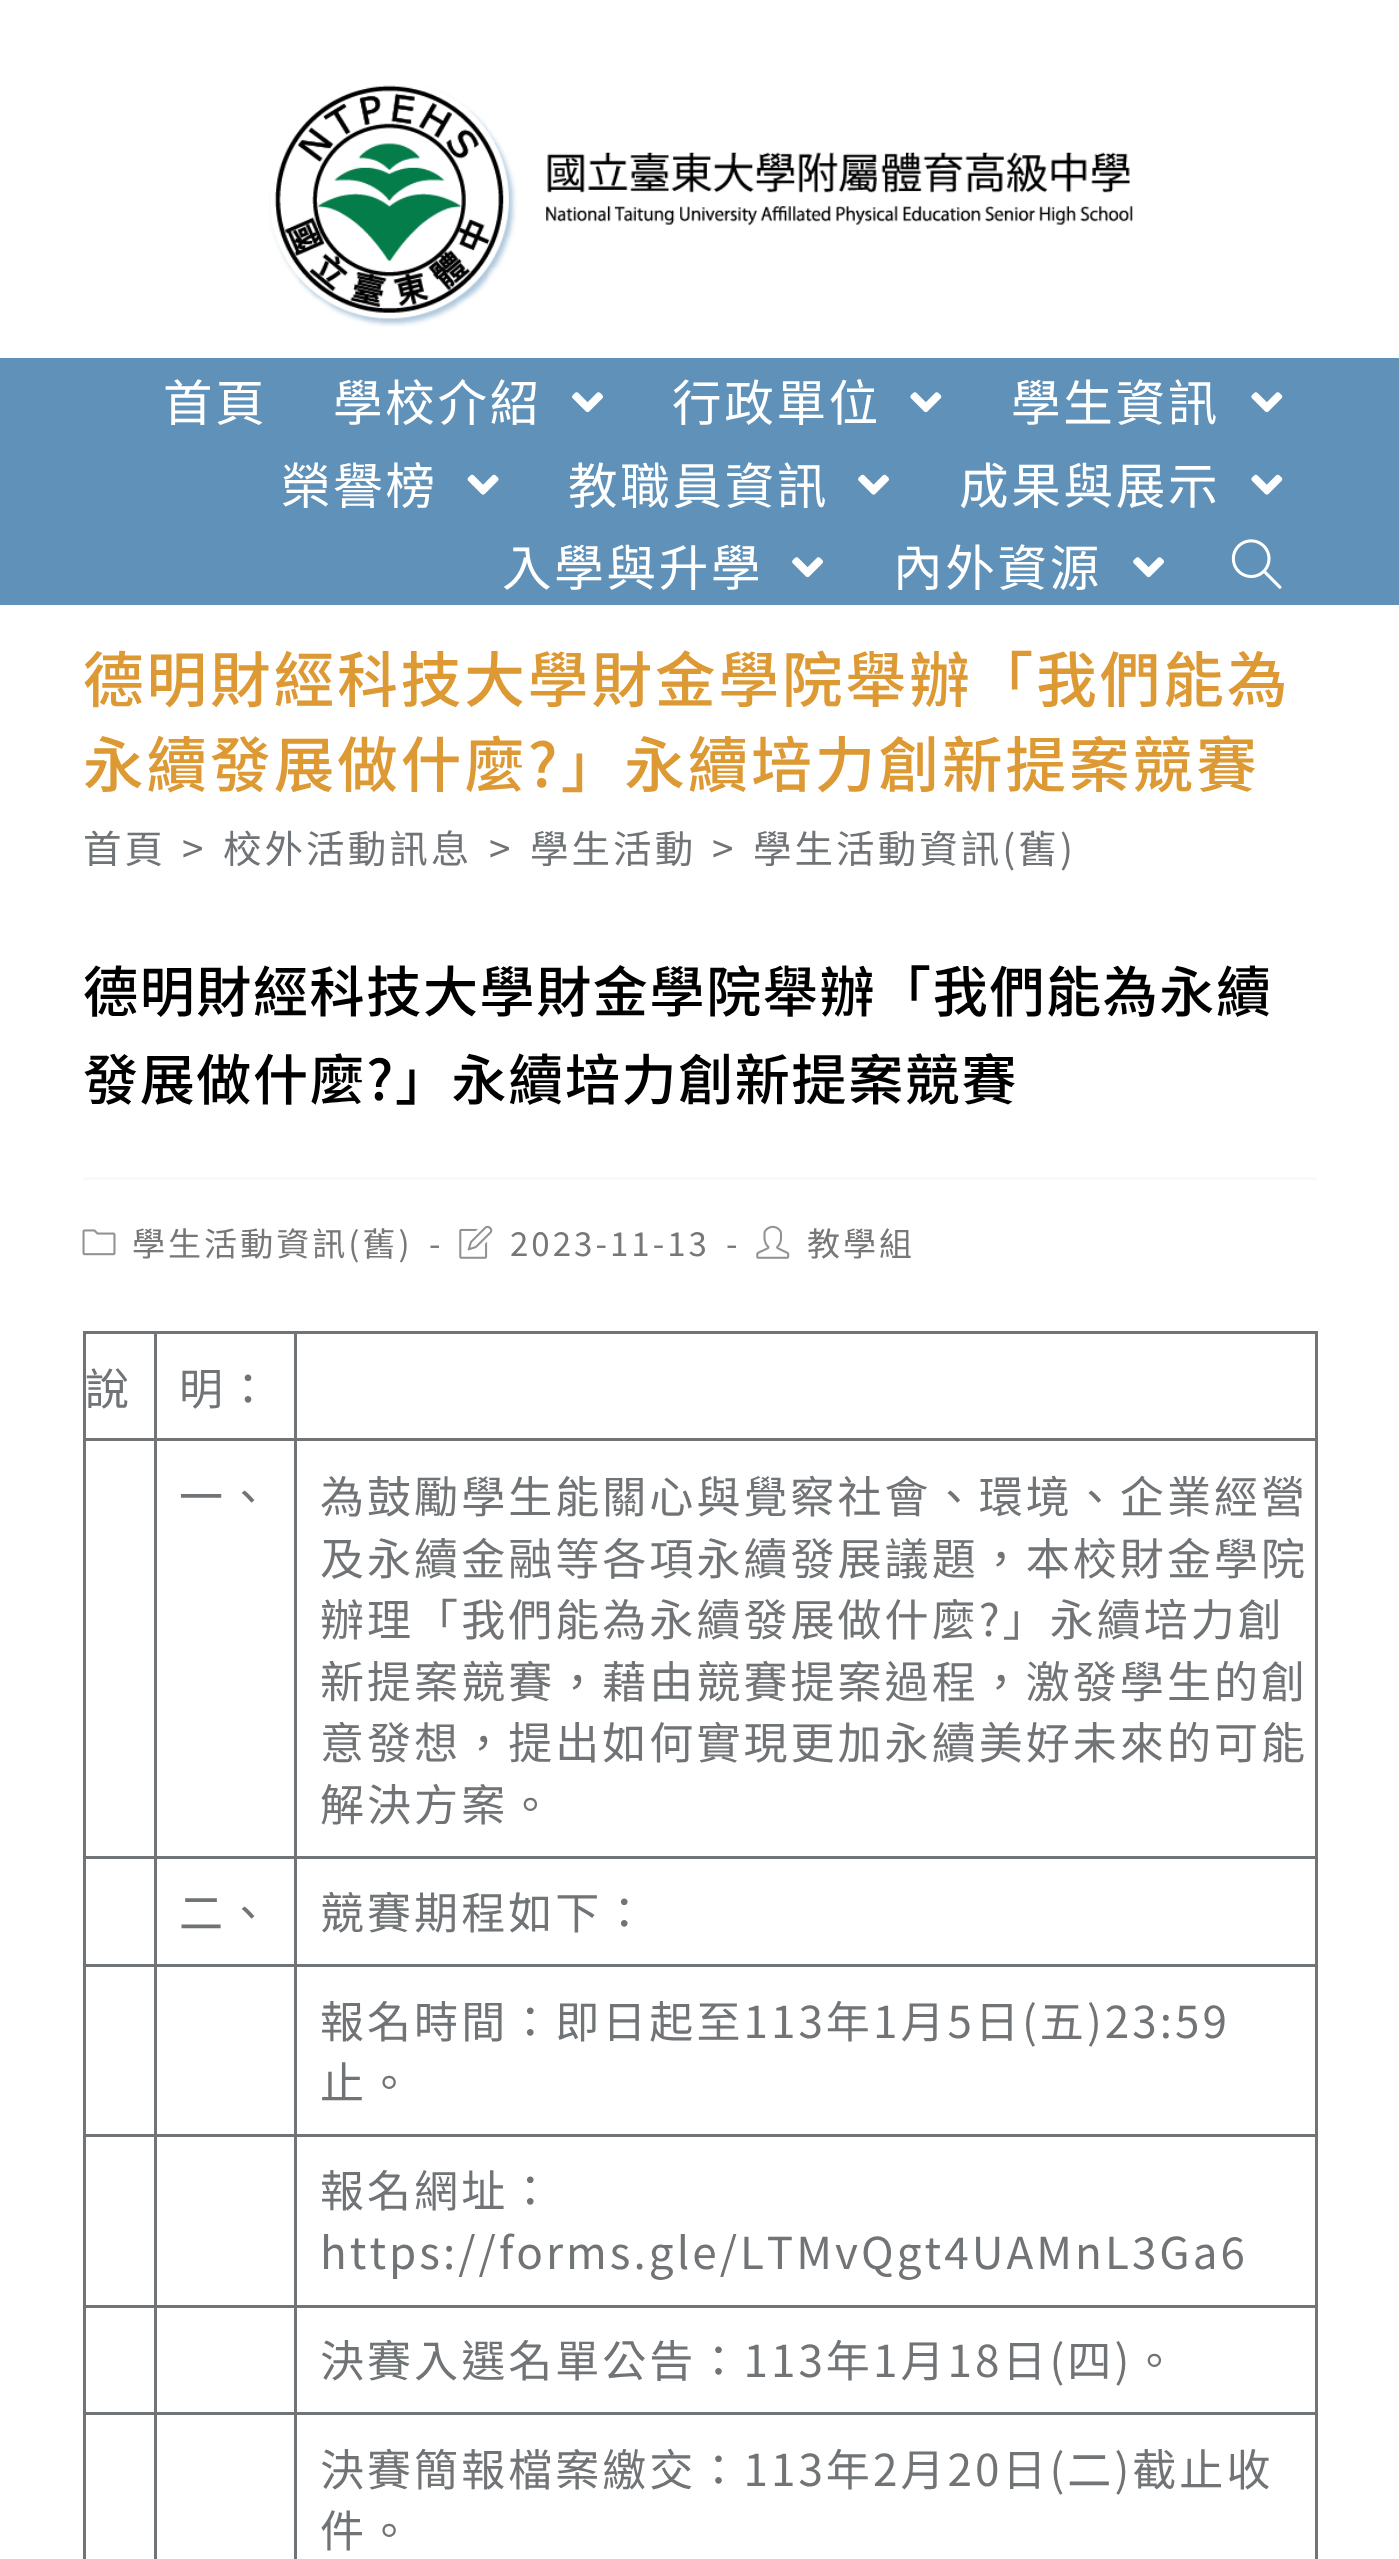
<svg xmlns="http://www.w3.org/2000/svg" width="1399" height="2559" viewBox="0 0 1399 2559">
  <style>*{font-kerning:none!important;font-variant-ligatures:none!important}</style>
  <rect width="100%" height="100%" fill="rgb(255,255,255)"/>
  <image x="269" y="85" width="864" height="242" href="pic1.png"/>
  <rect x="0" y="358" width="1399" height="247" fill="rgb(95,145,185)"/>
  <g font-family="Noto Sans TC" font-size="49.5" letter-spacing="2.75" fill="rgb(255,255,255)">
    <text x="163" y="421">首頁</text>
    <text x="333" y="421">學校介紹</text>
  </g>
  <image x="572" y="392" width="31" height="21" href="pic2.png"/>
  <text x="672" y="421" font-family="Noto Sans TC" font-size="49.5" letter-spacing="2.75" fill="rgb(255,255,255)">行政單位</text>
  <image x="910" y="392" width="32" height="21" href="pic3.png"/>
  <text x="1011" y="421" font-family="Noto Sans TC" font-size="49.5" letter-spacing="2.75" fill="rgb(255,255,255)">學生資訊</text>
  <image x="1251" y="392" width="32" height="21" href="pic3.png"/>
  <text x="281" y="504" font-family="Noto Sans TC" font-size="49.5" letter-spacing="2.75" fill="rgb(255,255,255)">榮譽榜</text>
  <image x="467" y="474" width="32" height="21" href="pic4.png"/>
  <text x="568" y="504" font-family="Noto Sans TC" font-size="49.5" letter-spacing="2.75" fill="rgb(255,255,255)">教職員資訊</text>
  <image x="858" y="474" width="31" height="21" href="pic5.png"/>
  <text x="959" y="504" font-family="Noto Sans TC" font-size="49.5" letter-spacing="2.75" fill="rgb(255,255,255)">成果與展示</text>
  <image x="1251" y="474" width="32" height="21" href="pic6.png"/>
  <text x="502" y="586" font-family="Noto Sans TC" font-size="49.5" letter-spacing="2.75" fill="rgb(255,255,255)">入學與升學</text>
  <image x="792" y="557" width="31" height="21" href="pic2.png"/>
  <text x="893" y="586" font-family="Noto Sans TC" font-size="49.5" letter-spacing="2.75" fill="rgb(255,255,255)">內外資源</text>
  <image x="1133" y="557" width="31" height="21" href="pic2.png"/>
  <image x="1231" y="539" width="51" height="50" href="pic7.png"/>
  <g font-family="Noto Sans TC" font-size="60.5" font-weight="500" letter-spacing="3.05" fill="rgb(221,153,51)">
    <text>
      <tspan x="83" y="702">德明財經科技大學財金學院舉辦「我們能為</tspan>
      <tspan x="83" y="787">永續發展做什麼?」永續培力創新提案競賽</tspan>
    </text>
  </g>
  <g font-family="Noto Sans TC" font-size="38.5" letter-spacing="3.05" fill="rgb(113,116,118)">
    <text x="83" y="863">首頁</text>
    <text x="182" y="863">&gt;</text>
    <text x="223" y="863">校外活動訊息</text>
    <text x="489" y="863">&gt;</text>
    <text x="530" y="863">學生活動</text>
    <text x="712" y="863">&gt;</text>
    <text x="753" y="863">學生活動資訊(舊)</text>
  </g>
  <rect x="83" y="1177" width="1234" height="3" fill="rgb(245,250,250)"/>
  <g font-family="Noto Sans TC" font-size="55" font-weight="500" letter-spacing="1.65" fill="rgb(0,0,0)">
    <text>
      <tspan x="83" y="1012">德明財經科技大學財金學院舉辦「我們能為永續</tspan>
      <tspan x="83" y="1100">發展做什麼?」永續培力創新提案競賽</tspan>
    </text>
  </g>
  <image x="82" y="1229" width="34" height="27" href="pic8.png"/>
  <g font-family="Noto Sans TC" font-size="33" letter-spacing="3.05" fill="rgb(119,119,119)">
    <text x="132" y="1256">學生活動資訊(舊)</text>
    <text x="429" y="1256">-</text>
  </g>
  <image x="459" y="1225" width="34" height="34" href="pic9.png"/>
  <g font-family="Noto Sans TC" font-size="33" letter-spacing="3.05" fill="rgb(119,119,119)">
    <text x="510" y="1256">2023-11-13</text>
    <text x="726" y="1256">-</text>
  </g>
  <image x="756" y="1225" width="34" height="34" href="pic10.png"/>
  <text x="807" y="1256" font-family="Noto Sans TC" font-size="33" letter-spacing="3.05" fill="rgb(119,119,119)">教學組</text>
  <rect x="294" y="1331" width="1023" height="3" fill="rgb(113,116,118)"/>
  <rect x="294" y="1438" width="1023" height="3" fill="rgb(113,116,118)"/>
  <rect x="294" y="1856" width="1023" height="3" fill="rgb(113,116,118)"/>
  <rect x="294" y="1964" width="1023" height="3" fill="rgb(113,116,118)"/>
  <rect x="294" y="2134" width="1023" height="3" fill="rgb(113,116,118)"/>
  <rect x="294" y="2305" width="1023" height="3" fill="rgb(113,116,118)"/>
  <rect x="294" y="2412" width="1023" height="3" fill="rgb(113,116,118)"/>
  <rect x="294" y="2412" width="3" height="147" fill="rgb(113,116,118)"/>
  <rect x="154" y="2412" width="143" height="3" fill="rgb(113,116,118)"/>
  <rect x="294" y="2305" width="3" height="110" fill="rgb(113,116,118)"/>
  <rect x="154" y="2305" width="143" height="3" fill="rgb(113,116,118)"/>
  <rect x="294" y="2134" width="3" height="173" fill="rgb(113,116,118)"/>
  <rect x="154" y="2134" width="143" height="3" fill="rgb(113,116,118)"/>
  <rect x="294" y="1964" width="3" height="173" fill="rgb(113,116,118)"/>
  <rect x="154" y="1964" width="143" height="3" fill="rgb(113,116,118)"/>
  <rect x="294" y="1856" width="3" height="110" fill="rgb(113,116,118)"/>
  <rect x="154" y="1856" width="143" height="3" fill="rgb(113,116,118)"/>
  <rect x="294" y="1438" width="3" height="421" fill="rgb(113,116,118)"/>
  <rect x="154" y="1438" width="143" height="3" fill="rgb(113,116,118)"/>
  <rect x="294" y="1331" width="3" height="110" fill="rgb(113,116,118)"/>
  <rect x="154" y="1331" width="143" height="3" fill="rgb(113,116,118)"/>
  <rect x="154" y="2412" width="3" height="147" fill="rgb(113,116,118)"/>
  <rect x="83" y="2412" width="74" height="3" fill="rgb(113,116,118)"/>
  <rect x="154" y="2305" width="3" height="110" fill="rgb(113,116,118)"/>
  <rect x="83" y="2305" width="74" height="3" fill="rgb(113,116,118)"/>
  <rect x="154" y="2134" width="3" height="173" fill="rgb(113,116,118)"/>
  <rect x="83" y="2134" width="74" height="3" fill="rgb(113,116,118)"/>
  <rect x="154" y="1964" width="3" height="173" fill="rgb(113,116,118)"/>
  <rect x="83" y="1964" width="74" height="3" fill="rgb(113,116,118)"/>
  <rect x="154" y="1856" width="3" height="110" fill="rgb(113,116,118)"/>
  <rect x="83" y="1856" width="74" height="3" fill="rgb(113,116,118)"/>
  <rect x="154" y="1438" width="3" height="421" fill="rgb(113,116,118)"/>
  <rect x="83" y="1438" width="74" height="3" fill="rgb(113,116,118)"/>
  <rect x="154" y="1331" width="3" height="110" fill="rgb(113,116,118)"/>
  <rect x="83" y="1331" width="74" height="3" fill="rgb(113,116,118)"/>
  <rect x="83" y="2412" width="3" height="147" fill="rgb(113,116,118)"/>
  <rect x="83" y="2305" width="3" height="110" fill="rgb(113,116,118)"/>
  <rect x="83" y="2134" width="3" height="173" fill="rgb(113,116,118)"/>
  <rect x="83" y="1964" width="3" height="173" fill="rgb(113,116,118)"/>
  <rect x="83" y="1856" width="3" height="110" fill="rgb(113,116,118)"/>
  <rect x="83" y="1438" width="3" height="421" fill="rgb(113,116,118)"/>
  <rect x="83" y="1331" width="3" height="110" fill="rgb(113,116,118)"/>
  <g font-family="Noto Sans TC" font-size="44" letter-spacing="3.05" fill="rgb(113,116,118)">
    <text x="85" y="1405">說</text>
    <text x="179" y="1405">明：</text>
  </g>
  <rect x="1315" y="2412" width="3" height="147" fill="rgb(113,116,118)"/>
  <rect x="1315" y="2305" width="3" height="110" fill="rgb(113,116,118)"/>
  <rect x="1315" y="2134" width="3" height="173" fill="rgb(113,116,118)"/>
  <rect x="1315" y="1964" width="3" height="173" fill="rgb(113,116,118)"/>
  <rect x="1315" y="1856" width="3" height="110" fill="rgb(113,116,118)"/>
  <rect x="1315" y="1438" width="3" height="421" fill="rgb(113,116,118)"/>
  <rect x="1315" y="1331" width="3" height="110" fill="rgb(113,116,118)"/>
  <g font-family="Noto Sans TC" font-size="44" letter-spacing="3.05" fill="rgb(113,116,118)">
    <text x="179" y="1513">一、</text>
    <text>
      <tspan x="320" y="1513">為鼓勵學生能關心與覺察社會、環境、企業經營</tspan>
      <tspan x="320" y="1575">及永續金融等各項永續發展議題，本校財金學院</tspan>
      <tspan x="320" y="1636">辦理「我們能為永續發展做什麼?」永續培力創</tspan>
      <tspan x="320" y="1698">新提案競賽，藉由競賽提案過程，激發學生的創</tspan>
      <tspan x="320" y="1759">意發想，提出如何實現更加永續美好未來的可能</tspan>
      <tspan x="320" y="1821">解決方案。</tspan>
    </text>
    <text x="179" y="1929">二、</text>
    <text x="320" y="1929">競賽期程如下：</text>
    <text>
      <tspan x="320" y="2038">報名時間：即日起至113年1月5日(五)23:59</tspan>
      <tspan x="320" y="2099">止。</tspan>
    </text>
    <text>
      <tspan x="320" y="2207">報名網址：</tspan>
      <tspan x="320" y="2269">https://forms.gle/LTMvQgt4UAMnL3Ga6</tspan>
    </text>
    <text x="320" y="2377">決賽入選名單公告：113年1月18日(四)。</text>
    <text>
      <tspan x="320" y="2486">決賽簡報檔案繳交：113年2月20日(二)截止收</tspan>
      <tspan x="320" y="2547">件。</tspan>
    </text>
  </g>
</svg>
